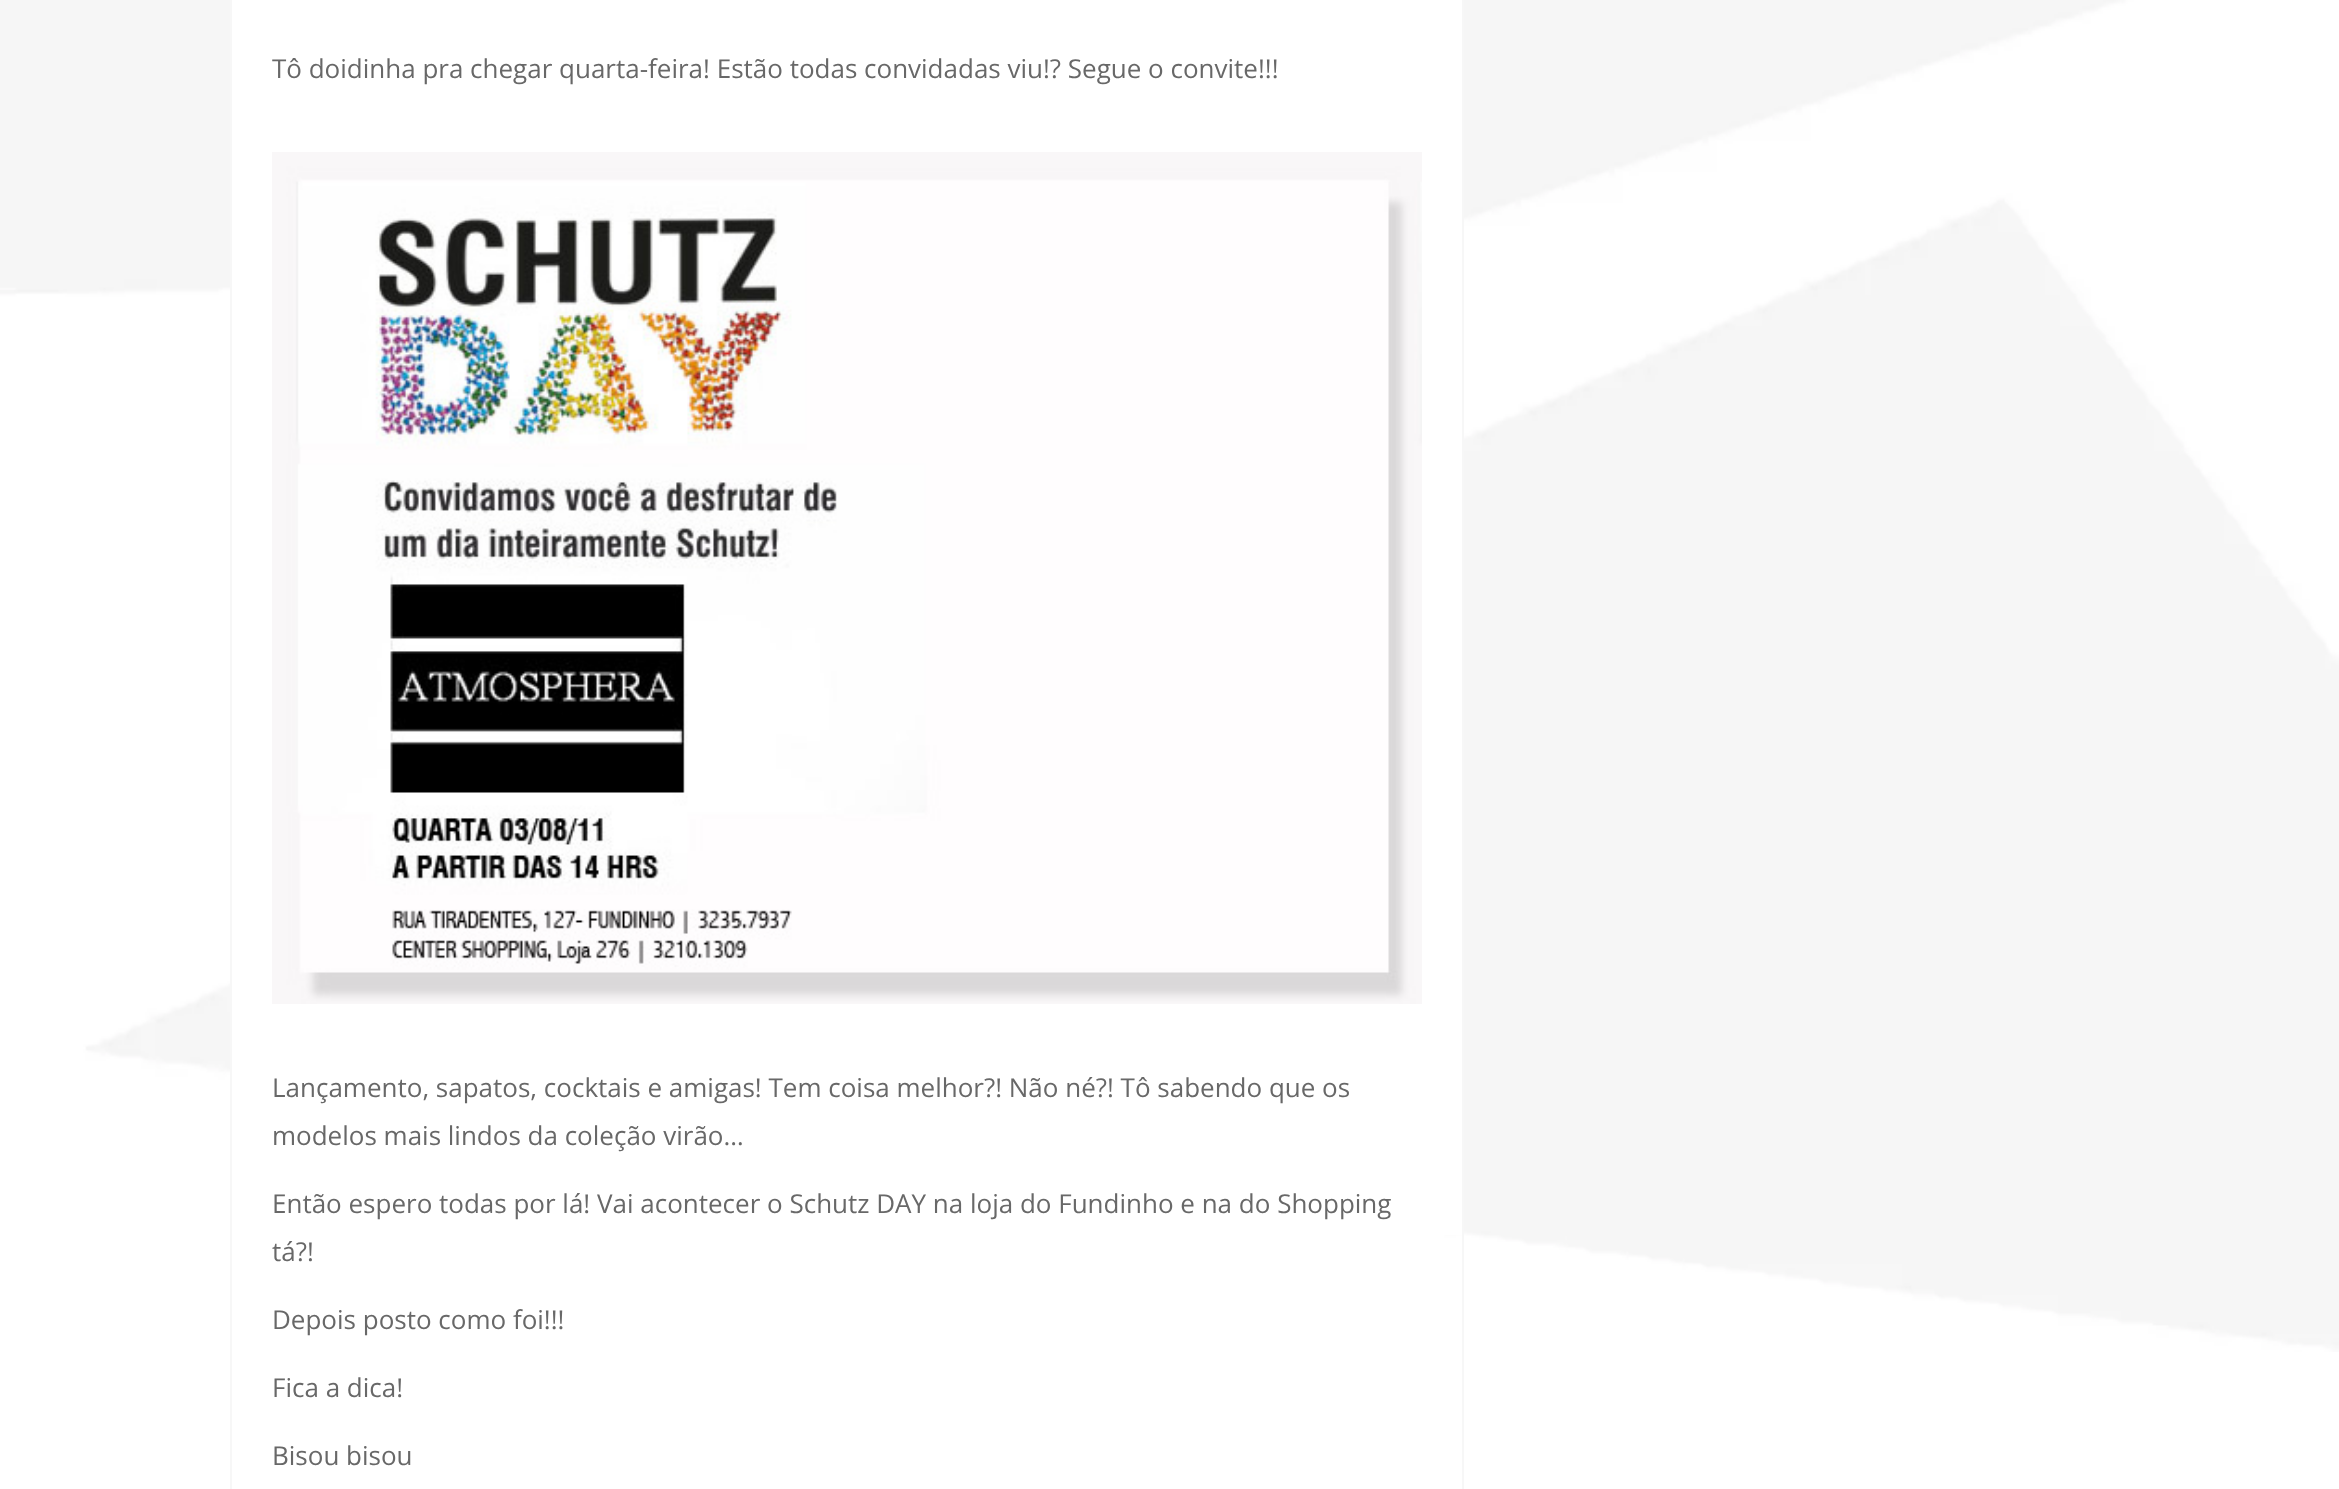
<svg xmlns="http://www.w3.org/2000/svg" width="2339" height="1489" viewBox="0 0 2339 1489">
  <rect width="100%" height="100%" fill="rgb(255,255,255)"/>
  <image x="0" y="0" width="2339" height="1352" href="pic1.png"/>
  <rect x="232" y="0" width="1230" height="1235" fill="rgb(255,255,255)"/>
  <rect x="231" y="-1" width="1232" height="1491" fill="none" stroke="rgb(247,247,247)" stroke-width="2"/>
  <text x="272" y="78" font-family="Open Sans" font-size="26" fill="rgb(104,104,104)">Tô doidinha pra chegar quarta-feira! Estão todas convidadas viu!? Segue o convite!!!</text>
  <image x="272" y="152" width="1150" height="852" href="pic2.png"/>
  <g font-family="Open Sans" font-size="26" fill="rgb(104,104,104)">
    <text>
      <tspan x="272" y="1097">Lançamento, sapatos, cocktais e amigas! Tem coisa melhor?! Não né?! Tô sabendo que os</tspan>
      <tspan x="272" y="1145">modelos mais lindos da coleção virão…</tspan>
    </text>
    <text>
      <tspan x="272" y="1213">Então espero todas por lá! Vai acontecer o Schutz DAY na loja do Fundinho e na do Shopping</tspan>
      <tspan x="272" y="1261">tá?!</tspan>
    </text>
    <text x="272" y="1329">Depois posto como foi!!!</text>
    <text x="272" y="1397">Fica a dica!</text>
    <text x="272" y="1465">Bisou bisou</text>
  </g>
</svg>
